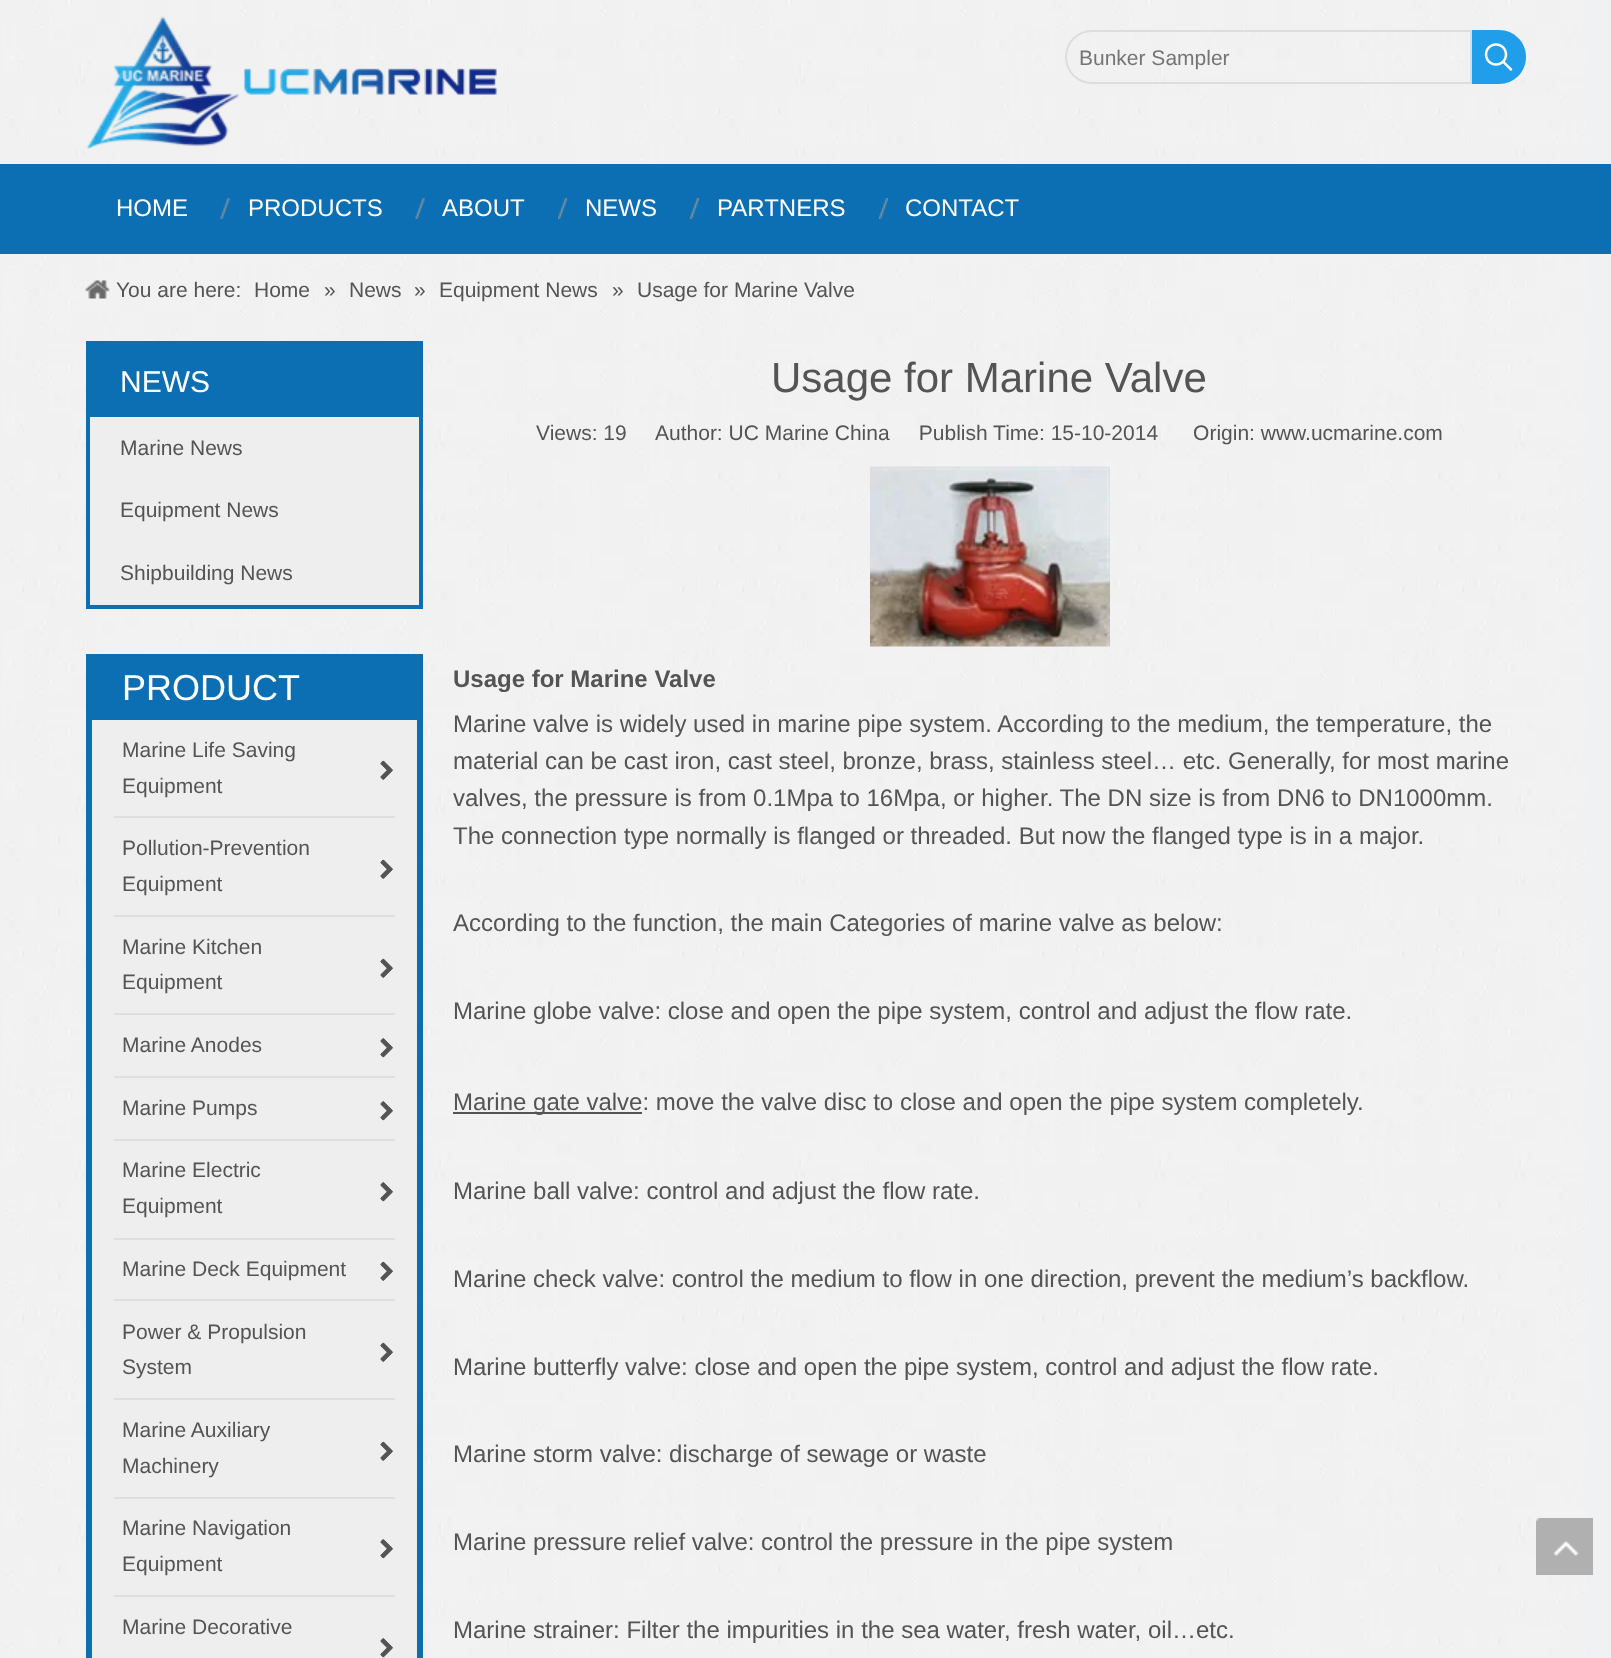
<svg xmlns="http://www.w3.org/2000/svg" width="1611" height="1658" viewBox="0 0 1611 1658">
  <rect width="100%" height="100%" fill="rgb(240,241,242)"/>
  <image x="3" y="0" width="1585" height="1655" href="pic1.png"/>
  <image x="86" y="16" width="411" height="133" href="pic2.png"/>
  <path d="M1092 31H1471V83H1092C1077.5 83 1066 71.5 1066 57C1066 42.5 1077.5 31 1092 31Z" fill="none" stroke="rgb(221,221,221)" stroke-width="2"/>
  <text x="1079" y="65" font-family="Liberation Sans" font-size="21" fill="rgb(117,117,117)">Bunker Sampler</text>
  <path d="M1472 30H1499C1514 30 1526 42 1526 57C1526 72 1514 84 1499 84H1472Z" fill="rgb(32,158,234)"/>
  <image x="1484" y="43" width="29" height="28" href="pic3.png"/>
  <rect x="0" y="164" width="1611" height="90" fill="rgb(12,111,179)"/>
  <text x="116" y="216" font-family="Liberation Sans" font-size="24" fill="rgb(255,255,255)">HOME</text>
  <image x="220" y="198" width="10" height="21" href="pic4.png"/>
  <text x="248" y="216" font-family="Liberation Sans" font-size="24" fill="rgb(255,255,255)">PRODUCTS</text>
  <image x="415" y="198" width="10" height="21" href="pic5.png"/>
  <text x="442" y="216" font-family="Liberation Sans" font-size="24" fill="rgb(255,255,255)">ABOUT</text>
  <image x="558" y="198" width="9" height="21" href="pic6.png"/>
  <text x="585" y="216" font-family="Liberation Sans" font-size="24" fill="rgb(255,255,255)">NEWS</text>
  <image x="690" y="198" width="9" height="21" href="pic7.png"/>
  <text x="717" y="216" font-family="Liberation Sans" font-size="24" fill="rgb(255,255,255)">PARTNERS</text>
  <image x="879" y="198" width="9" height="21" href="pic7.png"/>
  <text x="905" y="216" font-family="Liberation Sans" font-size="24" fill="rgb(255,255,255)">CONTACT</text>
  <image x="85" y="280" width="25" height="19" href="pic8.png"/>
  <g font-family="Liberation Sans" font-size="21" fill="rgb(84,84,84)">
    <text x="116" y="297">You are here:</text>
    <text x="254" y="297">Home</text>
    <text x="324" y="297">»</text>
    <text x="349" y="297">News</text>
    <text x="414" y="297">»</text>
    <text x="439" y="297">Equipment News</text>
    <text x="612" y="297">»</text>
    <text x="637" y="297">Usage for Marine Valve</text>
  </g>
  <rect x="88.5" y="343.5" width="332" height="263" fill="none" stroke="rgb(12,111,179)" stroke-width="5"/>
  <rect x="91" y="346" width="327" height="71" fill="rgb(12,111,179)"/>
  <text x="120" y="392" font-family="Liberation Sans" font-size="30" fill="rgb(255,255,255)">NEWS</text>
  <rect x="90" y="417" width="329" height="188" fill="rgb(238,238,238)"/>
  <g font-family="Liberation Sans" font-size="21" fill="rgb(84,84,84)">
    <text x="120" y="455">Marine News</text>
    <text x="120" y="517">Equipment News</text>
    <text x="120" y="580">Shipbuilding News</text>
  </g>
  <rect x="417" y="654" width="6" height="1004" fill="rgb(12,111,179)"/>
  <rect x="86" y="654" width="6" height="1004" fill="rgb(12,111,179)"/>
  <rect x="92" y="654" width="325" height="66" fill="rgb(12,111,179)"/>
  <text x="122" y="700" font-family="Liberation Sans" font-size="36" fill="rgb(255,255,255)">PRODUCT</text>
  <rect x="92" y="720" width="325" height="938" fill="rgb(238,238,238)"/>
  <text x="122" y="757" font-family="Liberation Sans" font-size="21" fill="rgb(84,84,84)">Marine Life Saving</text>
  <image x="380" y="760" width="13" height="20" href="pic9.png"/>
  <image x="380" y="760" width="13" height="20" href="pic10.png"/>
  <text x="122" y="793" font-family="Liberation Sans" font-size="21" fill="rgb(84,84,84)">Equipment</text>
  <rect x="114" y="816" width="281" height="2" fill="rgb(223,223,223)"/>
  <text x="122" y="855" font-family="Liberation Sans" font-size="21" fill="rgb(84,84,84)">Pollution-Prevention</text>
  <image x="380" y="859" width="13" height="20" href="pic9.png"/>
  <image x="380" y="859" width="13" height="20" href="pic10.png"/>
  <text x="122" y="891" font-family="Liberation Sans" font-size="21" fill="rgb(84,84,84)">Equipment</text>
  <rect x="114" y="915" width="281" height="2" fill="rgb(223,223,223)"/>
  <text x="122" y="954" font-family="Liberation Sans" font-size="21" fill="rgb(84,84,84)">Marine Kitchen</text>
  <image x="380" y="958" width="13" height="20" href="pic9.png"/>
  <image x="380" y="958" width="13" height="20" href="pic10.png"/>
  <text x="122" y="989" font-family="Liberation Sans" font-size="21" fill="rgb(84,84,84)">Equipment</text>
  <rect x="114" y="1013" width="281" height="2" fill="rgb(223,223,223)"/>
  <text x="122" y="1052" font-family="Liberation Sans" font-size="21" fill="rgb(84,84,84)">Marine Anodes</text>
  <image x="380" y="1038" width="13" height="20" href="pic11.png"/>
  <image x="380" y="1038" width="13" height="20" href="pic12.png"/>
  <rect x="114" y="1076" width="281" height="2" fill="rgb(223,223,223)"/>
  <text x="122" y="1115" font-family="Liberation Sans" font-size="21" fill="rgb(84,84,84)">Marine Pumps</text>
  <image x="380" y="1101" width="13" height="20" href="pic11.png"/>
  <image x="380" y="1101" width="13" height="20" href="pic12.png"/>
  <rect x="114" y="1139" width="281" height="2" fill="rgb(223,223,223)"/>
  <text x="122" y="1177" font-family="Liberation Sans" font-size="21" fill="rgb(84,84,84)">Marine Electric</text>
  <image x="380" y="1182" width="13" height="20" href="pic11.png"/>
  <image x="380" y="1182" width="13" height="20" href="pic12.png"/>
  <text x="122" y="1213" font-family="Liberation Sans" font-size="21" fill="rgb(84,84,84)">Equipment</text>
  <rect x="114" y="1238" width="281" height="2" fill="rgb(223,223,223)"/>
  <text x="122" y="1276" font-family="Liberation Sans" font-size="21" fill="rgb(84,84,84)">Marine Deck Equipment</text>
  <image x="380" y="1261" width="13" height="20" href="pic9.png"/>
  <image x="380" y="1261" width="13" height="20" href="pic10.png"/>
  <rect x="114" y="1299" width="281" height="2" fill="rgb(223,223,223)"/>
  <text x="122" y="1339" font-family="Liberation Sans" font-size="21" fill="rgb(84,84,84)">Power &amp; Propulsion</text>
  <image x="380" y="1342" width="13" height="20" href="pic9.png"/>
  <image x="380" y="1342" width="13" height="20" href="pic10.png"/>
  <text x="122" y="1374" font-family="Liberation Sans" font-size="21" fill="rgb(84,84,84)">System</text>
  <rect x="114" y="1398" width="281" height="2" fill="rgb(223,223,223)"/>
  <text x="122" y="1437" font-family="Liberation Sans" font-size="21" fill="rgb(84,84,84)">Marine Auxiliary</text>
  <image x="380" y="1441" width="13" height="20" href="pic9.png"/>
  <image x="380" y="1441" width="13" height="20" href="pic10.png"/>
  <text x="122" y="1473" font-family="Liberation Sans" font-size="21" fill="rgb(84,84,84)">Machinery</text>
  <rect x="114" y="1497" width="281" height="2" fill="rgb(223,223,223)"/>
  <text x="122" y="1535" font-family="Liberation Sans" font-size="21" fill="rgb(84,84,84)">Marine Navigation</text>
  <image x="380" y="1539" width="13" height="20" href="pic11.png"/>
  <image x="380" y="1539" width="13" height="20" href="pic12.png"/>
  <text x="122" y="1571" font-family="Liberation Sans" font-size="21" fill="rgb(84,84,84)">Equipment</text>
  <rect x="114" y="1595" width="281" height="2" fill="rgb(223,223,223)"/>
  <text x="122" y="1634" font-family="Liberation Sans" font-size="21" fill="rgb(84,84,84)">Marine Decorative</text>
  <image x="380" y="1638" width="13" height="20" href="pic11.png"/>
  <image x="380" y="1638" width="13" height="20" href="pic12.png"/>
  <text x="771" y="392" font-family="Liberation Sans" font-size="42" fill="rgb(84,84,84)">Usage for Marine Valve</text>
  <g font-family="Liberation Sans" font-size="21" fill="rgb(84,84,84)">
    <text x="536" y="440">Views: 19</text>
    <text x="655" y="440" xml:space="preserve">Author: UC Marine China     Publish Time: 15-10-2014      Origin: www.ucmarine.com</text>
  </g>
  <image x="870" y="466" width="240" height="181" href="pic13.png"/>
  <text x="453" y="687" font-family="Liberation Sans" font-size="24" font-weight="bold" fill="rgb(84,84,84)">Usage for Marine Valve</text>
  <g font-family="Liberation Sans" font-size="24" fill="rgb(84,84,84)">
    <text>
      <tspan x="453" y="732">Marine valve is widely used in marine pipe system. According to the medium, the temperature, the</tspan>
      <tspan x="453" y="769">material can be cast iron, cast steel, bronze, brass, stainless steel… etc. Generally, for most marine</tspan>
      <tspan x="453" y="806">valves, the pressure is from 0.1Mpa to 16Mpa, or higher. The DN size is from DN6 to DN1000mm.</tspan>
      <tspan x="453" y="844">The connection type normally is flanged or threaded. But now the flanged type is in a major.</tspan>
    </text>
    <text x="453" y="931">According to the function, the main Categories of marine valve as below:</text>
    <text x="453" y="1019">Marine globe valve: close and open the pipe system, control and adjust the flow rate.</text>
  </g>
  <rect x="453" y="1112" width="189" height="2" fill="rgb(84,84,84)"/>
  <g font-family="Liberation Sans" font-size="24" fill="rgb(84,84,84)">
    <text x="453" y="1110">Marine gate valve: move the valve disc to close and open the pipe system completely.</text>
    <text x="453" y="1199">Marine ball valve: control and adjust the flow rate.</text>
    <text x="453" y="1287">Marine check valve: control the medium to flow in one direction, prevent the medium’s backflow.</text>
    <text x="453" y="1375">Marine butterfly valve: close and open the pipe system, control and adjust the flow rate.</text>
    <text x="453" y="1462">Marine storm valve: discharge of sewage or waste</text>
    <text x="453" y="1550">Marine pressure relief valve: control the pressure in the pipe system</text>
    <text x="453" y="1638">Marine strainer: Filter the impurities in the sea water, fresh water, oil…etc.</text>
  </g>
  <image x="1536" y="1518" width="57" height="57" href="pic14.png"/>
</svg>
